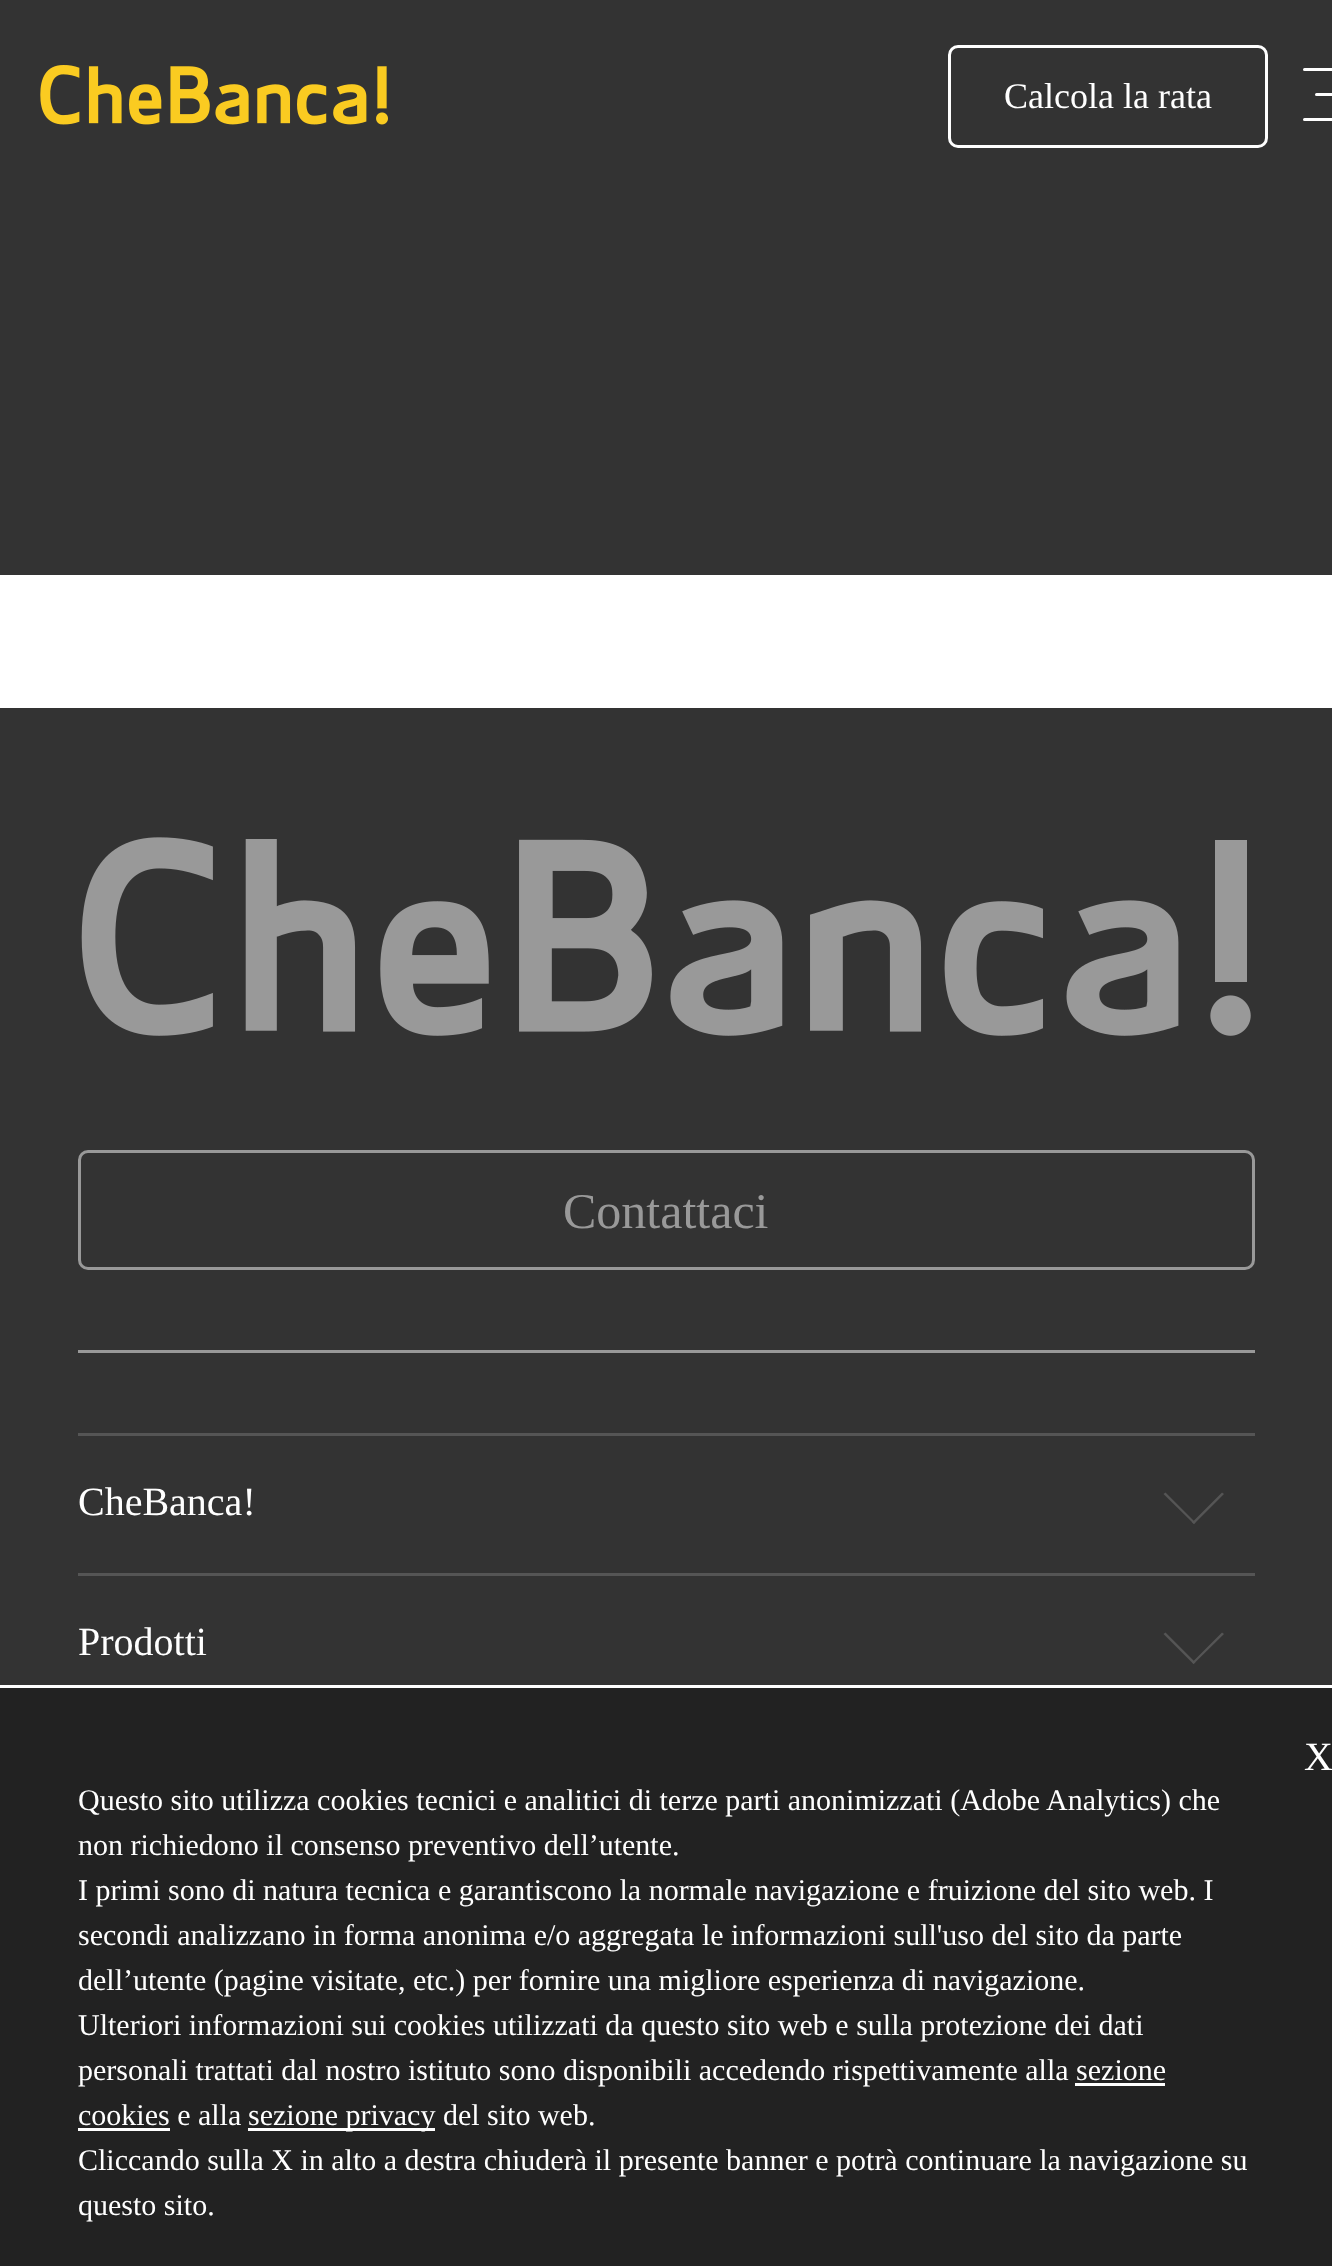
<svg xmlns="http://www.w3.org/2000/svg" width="1332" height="2266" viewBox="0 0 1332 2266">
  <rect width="100%" height="100%" fill="rgb(255,255,255)"/>
  <rect x="0" y="0" width="1332" height="575" fill="rgb(51,51,51)"/>
  <image x="40" y="65" width="348" height="60" href="pic1.png"/>
  <rect x="949.5" y="46.5" width="317" height="100" rx="8.5" fill="none" stroke="rgb(255,255,255)" stroke-width="3"/>
  <text x="1004" y="108" font-family="Liberation Serif" font-size="36" fill="rgb(255,255,255)">Calcola la rata</text>
  <rect x="1303" y="68" width="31" height="3" rx="1.5" fill="rgb(255,255,255)"/>
  <rect x="1315" y="93" width="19" height="3" rx="1.5" fill="rgb(255,255,255)"/>
  <rect x="1303" y="118" width="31" height="3" rx="1.5" fill="rgb(255,255,255)"/>
  <rect x="0" y="708" width="1332" height="977" fill="rgb(51,51,51)"/>
  <image x="81" y="837" width="1170" height="199" href="pic2.png"/>
  <rect x="79.5" y="1151.5" width="1174" height="117" rx="8.5" fill="none" stroke="rgb(153,153,153)" stroke-width="3"/>
  <text x="563" y="1228" font-family="Liberation Serif" font-size="50" fill="rgb(153,153,153)">Contattaci</text>
  <rect x="78" y="1350" width="1177" height="3" fill="rgb(153,153,153)"/>
  <rect x="78" y="1433" width="1177" height="3" fill="rgb(85,85,85)"/>
  <text x="78" y="1515" font-family="Liberation Serif" font-size="40" fill="rgb(255,255,255)">CheBanca!</text>
  <path d="M1224 1494L1194 1524L1192 1522.5L1222 1492.5Z" fill="rgb(85,85,85)"/>
  <path d="M1195.5 1522.5L1194 1524L1163.5 1494L1165.5 1492.5Z" fill="rgb(85,85,85)"/>
  <rect x="78" y="1573" width="1177" height="3" fill="rgb(85,85,85)"/>
  <text x="78" y="1655" font-family="Liberation Serif" font-size="40" fill="rgb(255,255,255)">Prodotti</text>
  <path d="M1224 1634L1193.5 1664L1192 1662.5L1222 1632.5Z" fill="rgb(85,85,85)"/>
  <path d="M1195.5 1662.5L1193.5 1664L1163.5 1634L1165.5 1632.5Z" fill="rgb(85,85,85)"/>
  <rect x="0" y="1688" width="1332" height="578" fill="rgb(34,34,34)"/>
  <text x="1304" y="1770" font-family="Liberation Serif" font-size="40" fill="rgb(255,255,255)">X</text>
  <g font-family="Liberation Serif" font-size="30" fill="rgb(255,255,255)">
    <text>
      <tspan x="78" y="1810">Questo sito utilizza cookies tecnici e analitici di terze parti anonimizzati (Adobe Analytics) che</tspan>
      <tspan x="78" y="1855">non richiedono il consenso preventivo dell’utente.</tspan>
      <tspan x="78" y="1900">I primi sono di natura tecnica e garantiscono la normale navigazione e fruizione del sito web. I</tspan>
      <tspan x="78" y="1945">secondi analizzano in forma anonima e/o aggregata le informazioni sull'uso del sito da parte</tspan>
      <tspan x="78" y="1990">dell’utente (pagine visitate, etc.) per fornire una migliore esperienza di navigazione.</tspan>
      <tspan x="78" y="2035">Ulteriori informazioni sui cookies utilizzati da questo sito web e sulla protezione dei dati</tspan>
      <tspan x="78" y="2080">personali trattati dal nostro istituto sono disponibili accedendo rispettivamente alla sezione</tspan>
      <tspan x="78" y="2125">cookies e alla</tspan>
    </text>
  </g>
  <rect x="1075" y="2083" width="90" height="3" fill="rgb(255,255,255)"/>
  <rect x="78" y="2128" width="92" height="3" fill="rgb(255,255,255)"/>
  <rect x="248" y="2128" width="187" height="3" fill="rgb(255,255,255)"/>
  <g font-family="Liberation Serif" font-size="30" fill="rgb(255,255,255)">
    <text x="248" y="2125">sezione privacy del sito web.</text>
    <text>
      <tspan x="78" y="2170">Cliccando sulla X in alto a destra chiuderà il presente banner e potrà continuare la navigazione su</tspan>
      <tspan x="78" y="2215">questo sito.</tspan>
    </text>
  </g>
</svg>
